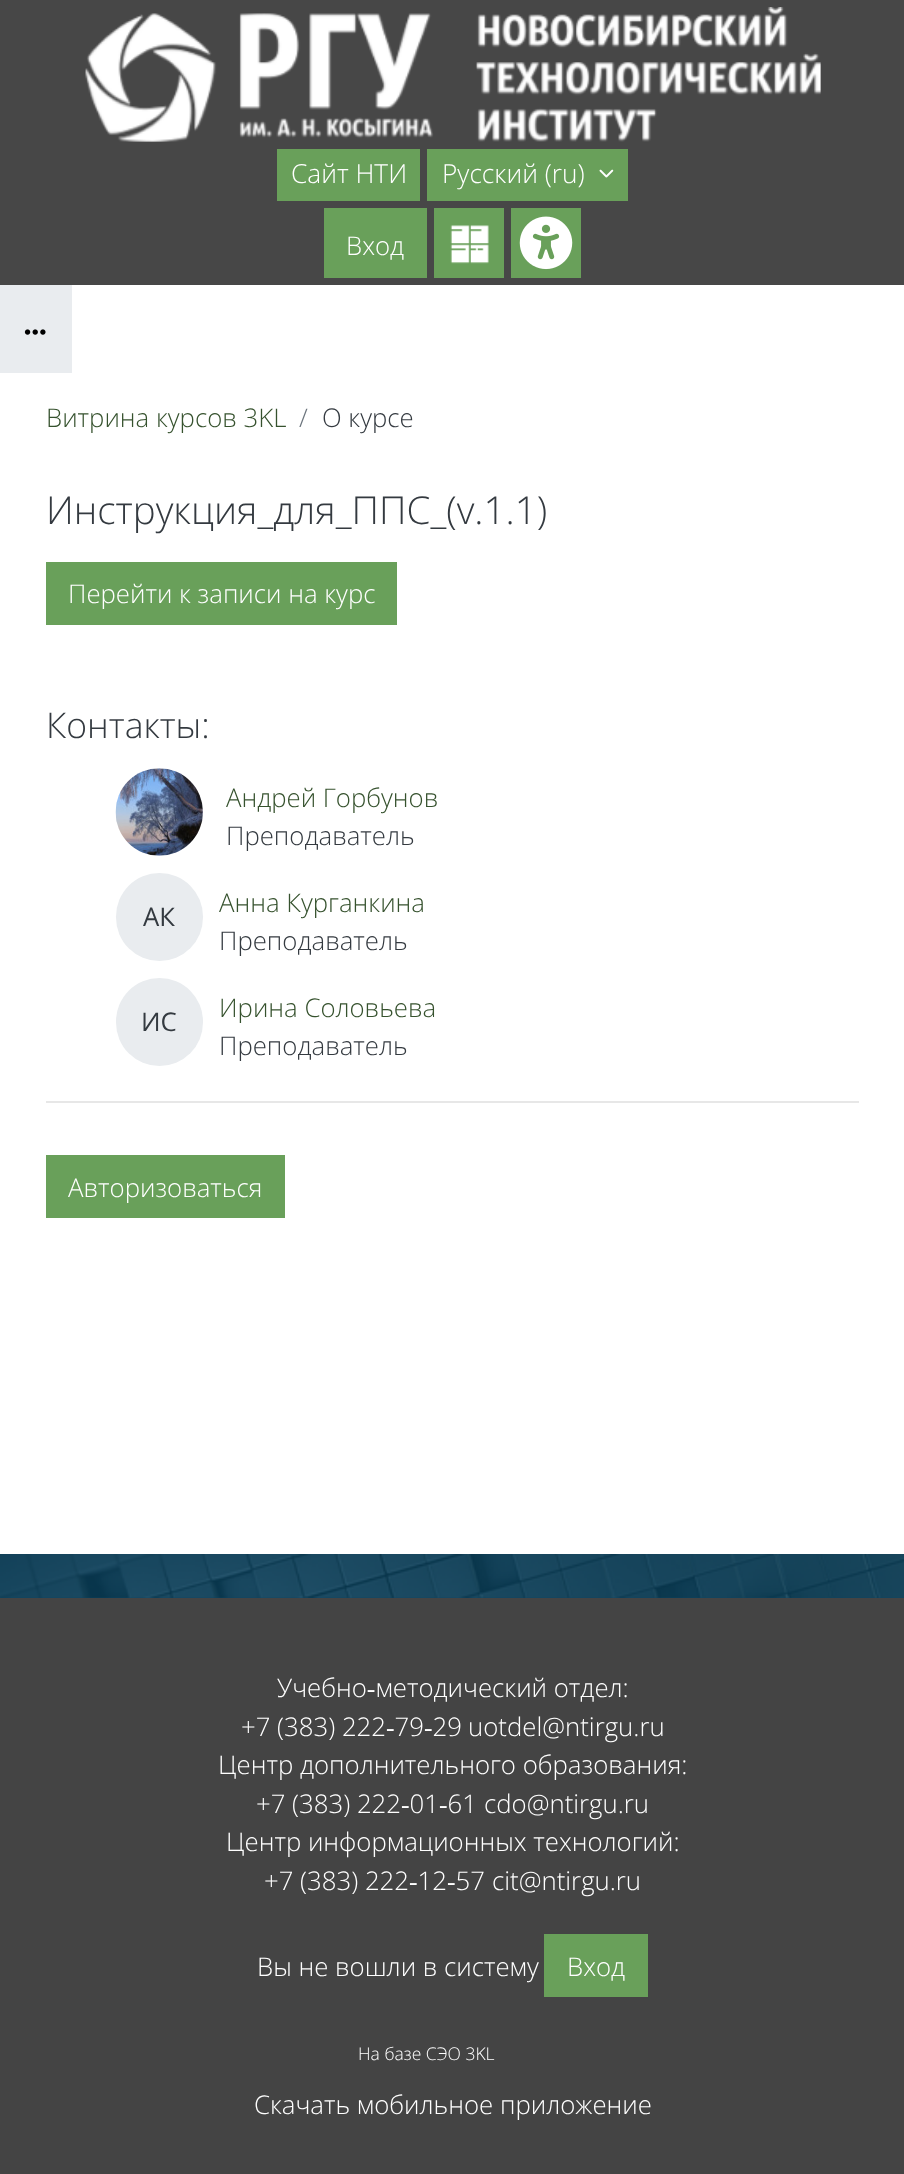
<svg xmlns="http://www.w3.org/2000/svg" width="904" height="2174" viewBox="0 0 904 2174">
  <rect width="100%" height="100%" fill="rgb(255,255,255)"/>
  <rect x="0" y="0" width="904" height="285" fill="rgb(71,71,71)"/>
  <image x="85" y="7" width="736" height="135" href="pic1.png"/>
  <rect x="277" y="149" width="143" height="52" fill="rgb(105,160,90)"/>
  <text x="291" y="183" font-family="Open Sans" font-size="26.25" font-weight="300" fill="rgb(255,255,255)">Сайт НТИ</text>
  <rect x="427" y="149" width="201" height="52" fill="rgb(105,160,90)"/>
  <text x="442" y="183" font-family="Open Sans" font-size="26.25" font-weight="300" fill="rgb(255,255,255)">Русский (ru)</text>
  <image x="599" y="169" width="15" height="9" href="pic2.png"/>
  <rect x="324" y="208" width="103" height="70" fill="rgb(105,160,90)"/>
  <text x="346" y="255" font-family="Open Sans" font-size="25.75" font-weight="300" fill="rgb(255,255,255)">Вход</text>
  <rect x="434" y="208" width="70" height="70" fill="rgb(105,160,90)"/>
  <image x="450" y="225" width="39" height="39" href="pic3.png"/>
  <rect x="511" y="208" width="70" height="70" fill="rgb(105,160,90)"/>
  <image x="519" y="216" width="54" height="54" href="pic4.png"/>
  <rect x="0" y="285" width="72" height="88" fill="rgb(233,236,239)"/>
  <image x="24" y="329" width="22" height="6" href="pic5.png"/>
  <text x="46" y="427" font-family="Open Sans" font-size="25.75" font-weight="300" fill="rgb(54,82,46)">Витрина курсов 3KL</text>
  <text x="299" y="427" font-family="Open Sans" font-size="25.75" font-weight="300" fill="rgb(108,117,125)">/</text>
  <text x="322" y="427" font-family="Open Sans" font-size="25.75" font-weight="300" fill="rgb(52,58,64)">О курсе</text>
  <text x="46" y="524" font-family="Open Sans" font-size="38.5" font-weight="300" fill="rgb(52,58,64)">Инструкция_для_ППС_(v.1.1)</text>
  <rect x="46" y="562" width="351" height="63" fill="rgb(105,160,90)"/>
  <text x="68" y="603" font-family="Open Sans" font-size="25.75" font-weight="300" fill="rgb(255,255,255)">Перейти к записи на курс</text>
  <text x="46" y="738" font-family="Open Sans" font-size="35.5" font-weight="300" fill="rgb(52,58,64)">Контакты:</text>
  <image x="115" y="768" width="88" height="88" href="pic6.png"/>
  <text x="226" y="807" font-family="Open Sans" font-size="25.75" font-weight="300" fill="rgb(54,82,46)">Андрей Горбунов</text>
  <text x="226" y="845" font-family="Open Sans" font-size="25.75" font-weight="300" fill="rgb(52,58,64)">Преподаватель</text>
  <rect x="116" y="873" width="87" height="88" rx="43.5" fill="rgb(233,236,239)"/>
  <text x="143" y="926" font-family="Open Sans" font-size="25.75" fill="rgb(52,58,64)">АК</text>
  <text x="219" y="912" font-family="Open Sans" font-size="25.75" font-weight="300" fill="rgb(54,82,46)">Анна Курганкина</text>
  <text x="219" y="950" font-family="Open Sans" font-size="25.75" font-weight="300" fill="rgb(52,58,64)">Преподаватель</text>
  <rect x="116" y="978" width="87" height="88" rx="43.5" fill="rgb(233,236,239)"/>
  <text x="141" y="1031" font-family="Open Sans" font-size="25.75" fill="rgb(52,58,64)">ИС</text>
  <text x="219" y="1017" font-family="Open Sans" font-size="25.75" font-weight="300" fill="rgb(54,82,46)">Ирина Соловьева</text>
  <text x="219" y="1055" font-family="Open Sans" font-size="25.75" font-weight="300" fill="rgb(52,58,64)">Преподаватель</text>
  <rect x="46" y="1101" width="813" height="2" fill="rgb(231,231,231)"/>
  <rect x="46" y="1155" width="239" height="63" fill="rgb(105,160,90)"/>
  <text x="68" y="1197" font-family="Open Sans" font-size="25.75" font-weight="300" fill="rgb(255,255,255)">Авторизоваться</text>
  <rect x="0" y="1554" width="904" height="44" fill="rgb(11,71,101)"/>
  <image x="0" y="1554" width="904" height="44" href="pic7.png"/>
  <rect x="0" y="1598" width="904" height="576" fill="rgb(68,68,68)"/>
  <g font-family="Open Sans" font-size="25.75" font-weight="300" fill="rgb(255,255,255)">
    <text x="277" y="1697">Учебно‑методический отдел:</text>
    <text x="241" y="1736">+7 (383) 222‑79‑29</text>
    <text x="468" y="1736">uotdel@ntirgu.ru</text>
    <text x="218" y="1774">Центр дополнительного образования:</text>
    <text x="256" y="1813">+7 (383) 222‑01‑61</text>
    <text x="484" y="1813">cdo@ntirgu.ru</text>
    <text x="226" y="1851">Центр информационных технологий:</text>
    <text x="264" y="1890">+7 (383) 222‑12‑57</text>
    <text x="492" y="1890">cit@ntirgu.ru</text>
    <text x="257" y="1976">Вы не вошли в систему</text>
  </g>
  <rect x="544" y="1934" width="104" height="63" fill="rgb(105,160,90)"/>
  <text x="567" y="1976" font-family="Open Sans" font-size="25.75" font-weight="300" fill="rgb(255,255,255)">Вход</text>
  <text x="358" y="2060" font-family="Open Sans" font-size="17.5" font-weight="300" fill="rgb(255,255,255)">На базе СЭО 3KL</text>
  <text x="254" y="2114" font-family="Open Sans" font-size="25.75" font-weight="300" fill="rgb(255,255,255)">Скачать мобильное приложение</text>
</svg>
